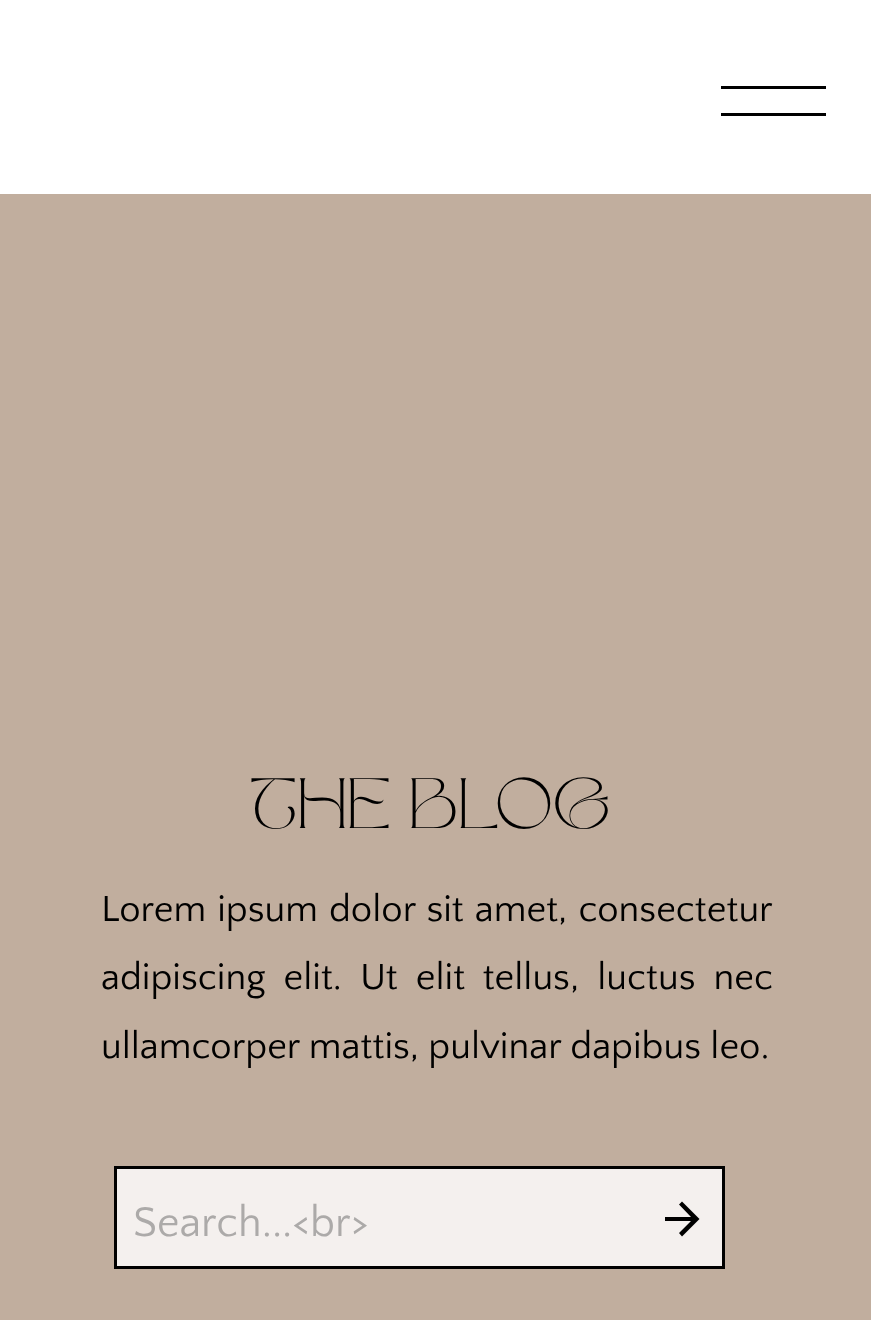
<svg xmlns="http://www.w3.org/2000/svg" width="871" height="1320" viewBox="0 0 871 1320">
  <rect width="100%" height="100%" fill="rgb(255,255,255)"/>
  <rect x="721" y="86" width="105" height="3" fill="rgb(0,0,0)"/>
  <rect x="721" y="113" width="105" height="3" fill="rgb(0,0,0)"/>
  <rect x="0" y="194" width="871" height="1126" fill="rgb(193,174,158)"/>
  <text x="249" y="828" font-family="'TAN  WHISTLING'" font-size="71" fill="rgb(0,0,0)">THE BLOG</text>
  <g font-family="Quattrocento Sans" font-size="38.1" fill="rgb(0,0,0)">
    <text>
      <tspan x="101" y="921" word-spacing="1.75">Lorem ipsum dolor sit amet, consectetur</tspan>
      <tspan x="101" y="989" word-spacing="8.75">adipiscing elit. Ut elit tellus, luctus nec</tspan>
      <tspan x="101" y="1058">ullamcorper mattis, pulvinar dapibus leo.</tspan>
    </text>
  </g>
  <rect x="115.5" y="1167.5" width="608" height="100" fill="rgb(244,240,238)" stroke="rgb(0,0,0)" stroke-width="3"/>
  <text x="133" y="1236" font-family="Quattrocento Sans" font-size="43.5" fill="rgb(172,170,169)">Search...&lt;br&gt;</text>
  <path d="M665 1221H691L679 1233L682 1236.5L699.5 1219L682 1201.5L679 1204.5L691 1217H665Z" fill="rgb(0,0,0)"/>
</svg>
